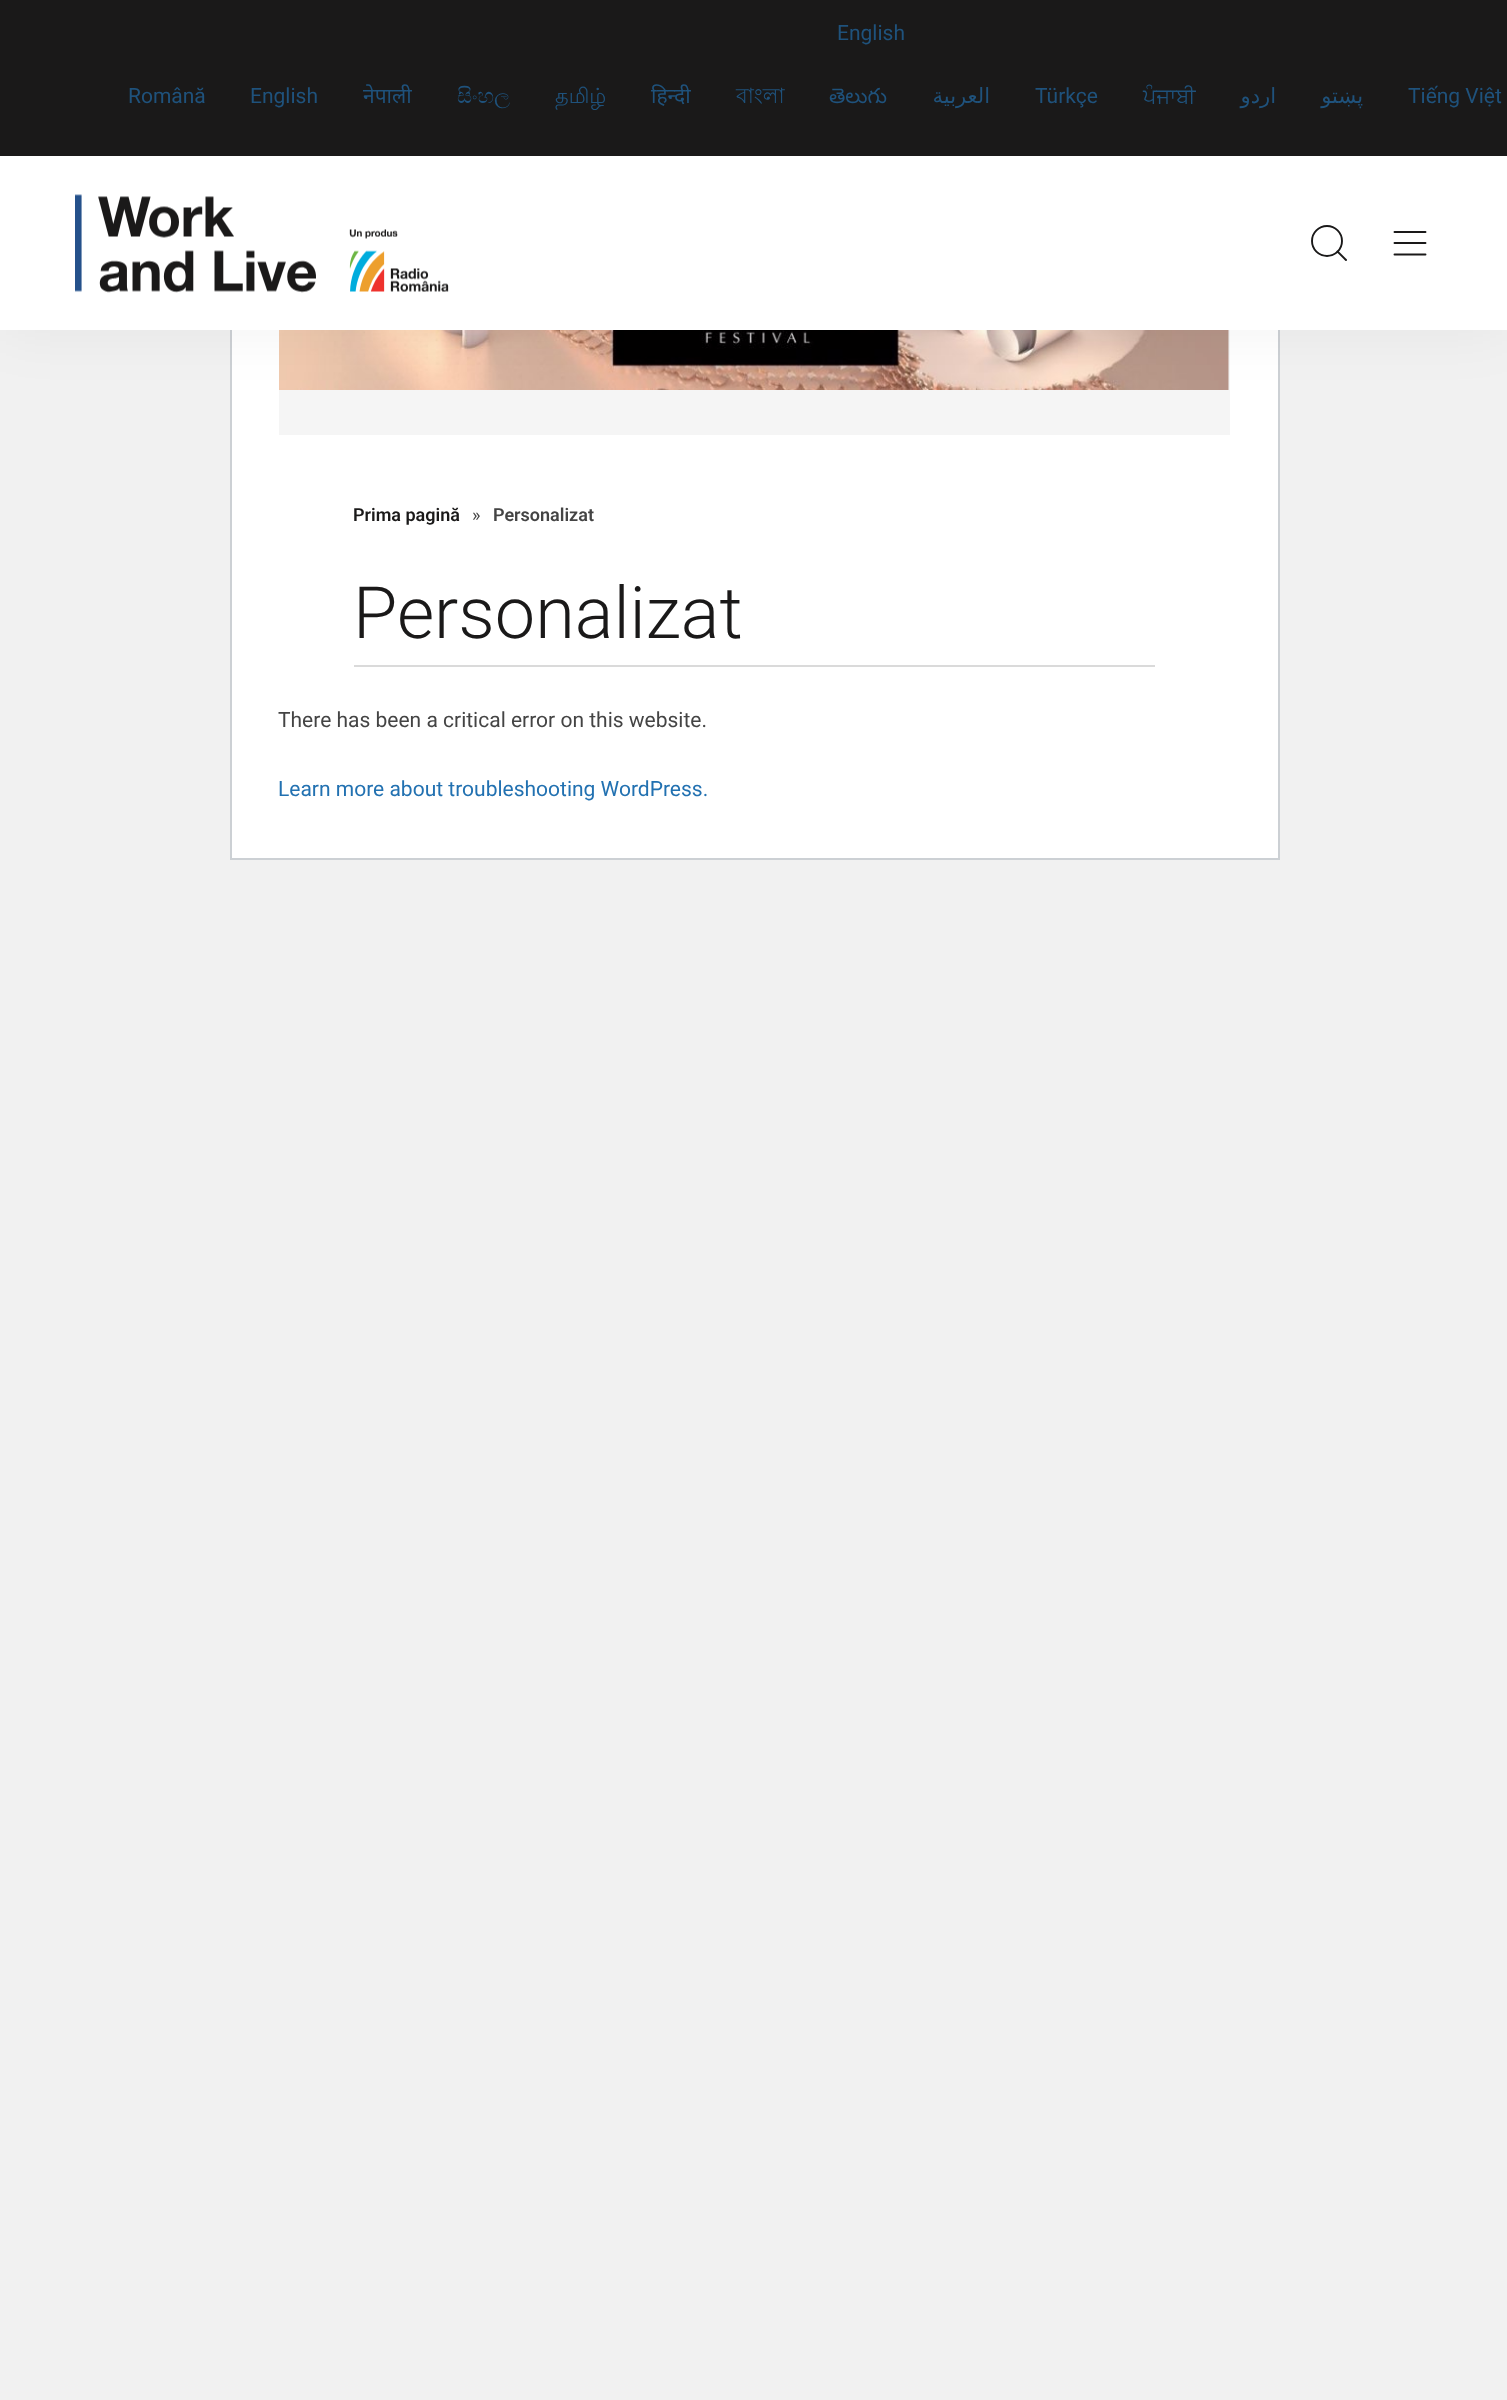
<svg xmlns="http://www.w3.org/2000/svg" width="1507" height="2400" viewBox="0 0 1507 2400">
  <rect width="100%" height="100%" fill="rgb(241,241,241)"/>
  <rect x="232" y="330" width="1046" height="528" fill="rgb(255,255,255)"/>
  <rect x="231" y="76" width="1048" height="783" fill="none" stroke="rgb(204,208,212)" stroke-width="2"/>
  <rect x="279" y="330" width="951" height="105" fill="rgb(245,245,245)"/>
  <image x="279" y="330" width="950" height="60" href="pic2.png"/>
  <rect x="0" y="0" width="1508" height="330" fill="rgba(26,25,25,0.05)" filter="blur(30px)"/>
  <rect x="0" y="156" width="1507" height="174" fill="rgb(255,255,255)"/>
  <rect x="0" y="0" width="1507" height="156" fill="rgb(26,25,25)"/>
  <g font-family="Roboto" font-size="21" fill="rgb(31,82,124)">
    <text x="837" y="40">English</text>
    <text x="128" y="103">Română</text>
    <text x="250" y="103">English</text>
  </g>
  <text x="363" y="103" font-family="Noto Sans" font-size="21" fill="rgb(31,82,124)">नेपाली</text>
  <text x="457" y="103" font-family="FreeSerif" font-size="21" fill="rgb(31,82,124)">සිංහල</text>
  <text x="555" y="103" font-family="Lohit Tamil" font-size="21" fill="rgb(31,82,124)">தமிழ்</text>
  <text x="651" y="103" font-family="Noto Sans" font-size="21" fill="rgb(31,82,124)">हिन्दी</text>
  <text x="736" y="103" font-family="Lohit Bengali" font-size="21" fill="rgb(31,82,124)">বাংলা</text>
  <text x="829" y="103" font-family="Noto Sans Telugu" font-size="21" fill="rgb(31,82,124)">తెలుగు</text>
  <text x="990" y="103" font-family="DejaVu Sans" font-size="21" direction="rtl" fill="rgb(31,82,124)">العربية</text>
  <text x="1035" y="103" font-family="Roboto" font-size="21" fill="rgb(31,82,124)">Türkçe</text>
  <text x="1143" y="103" font-family="FreeSans" font-size="21" fill="rgb(31,82,124)">ਪੰਜਾਬੀ</text>
  <g font-family="DejaVu Sans" font-size="21" direction="rtl" fill="rgb(31,82,124)">
    <text x="1276" y="103">اردو</text>
    <text x="1363" y="103">پښتو</text>
  </g>
  <text x="1408" y="103" font-family="Roboto" font-size="21" fill="rgb(31,82,124)">Tiếng Việt</text>
  <image x="75" y="194" width="374" height="99" href="pic1.png"/>
  <circle cx="1327" cy="241" r="15" fill="none" stroke="rgb(26,25,25)" stroke-width="1.9"/>
  <path d="M1337.5 251.5L1346 260" fill="none" stroke="rgb(26,25,25)" stroke-width="1.9" stroke-linecap="round" stroke-linejoin="round"/>
  <path d="M1394.5 243H1425.5M1394.5 232H1425.5M1394.5 254.5H1425.5" fill="none" stroke="rgb(26,25,25)" stroke-width="1.9" stroke-linecap="round" stroke-linejoin="round"/>
  <text x="353" y="521" font-family="Roboto" font-size="18" font-weight="600" fill="rgb(26,25,25)">Prima pagină</text>
  <text x="472" y="521" font-family="Roboto" font-size="18" fill="rgb(68,68,68)">»</text>
  <text x="493" y="521" font-family="Roboto" font-size="18" font-weight="600" fill="rgb(68,68,68)">Personalizat</text>
  <rect x="354" y="665" width="801" height="2" fill="rgb(218,218,218)"/>
  <text x="353" y="638" font-family="Roboto" font-size="72" font-weight="300" fill="rgb(26,25,25)">Personalizat</text>
  <text x="278" y="727" font-family="Roboto" font-size="21" fill="rgb(68,68,68)">There has been a critical error on this website.</text>
  <text x="278" y="796" font-family="Roboto" font-size="21" fill="rgb(34,113,177)">Learn more about troubleshooting WordPress.</text>
</svg>
